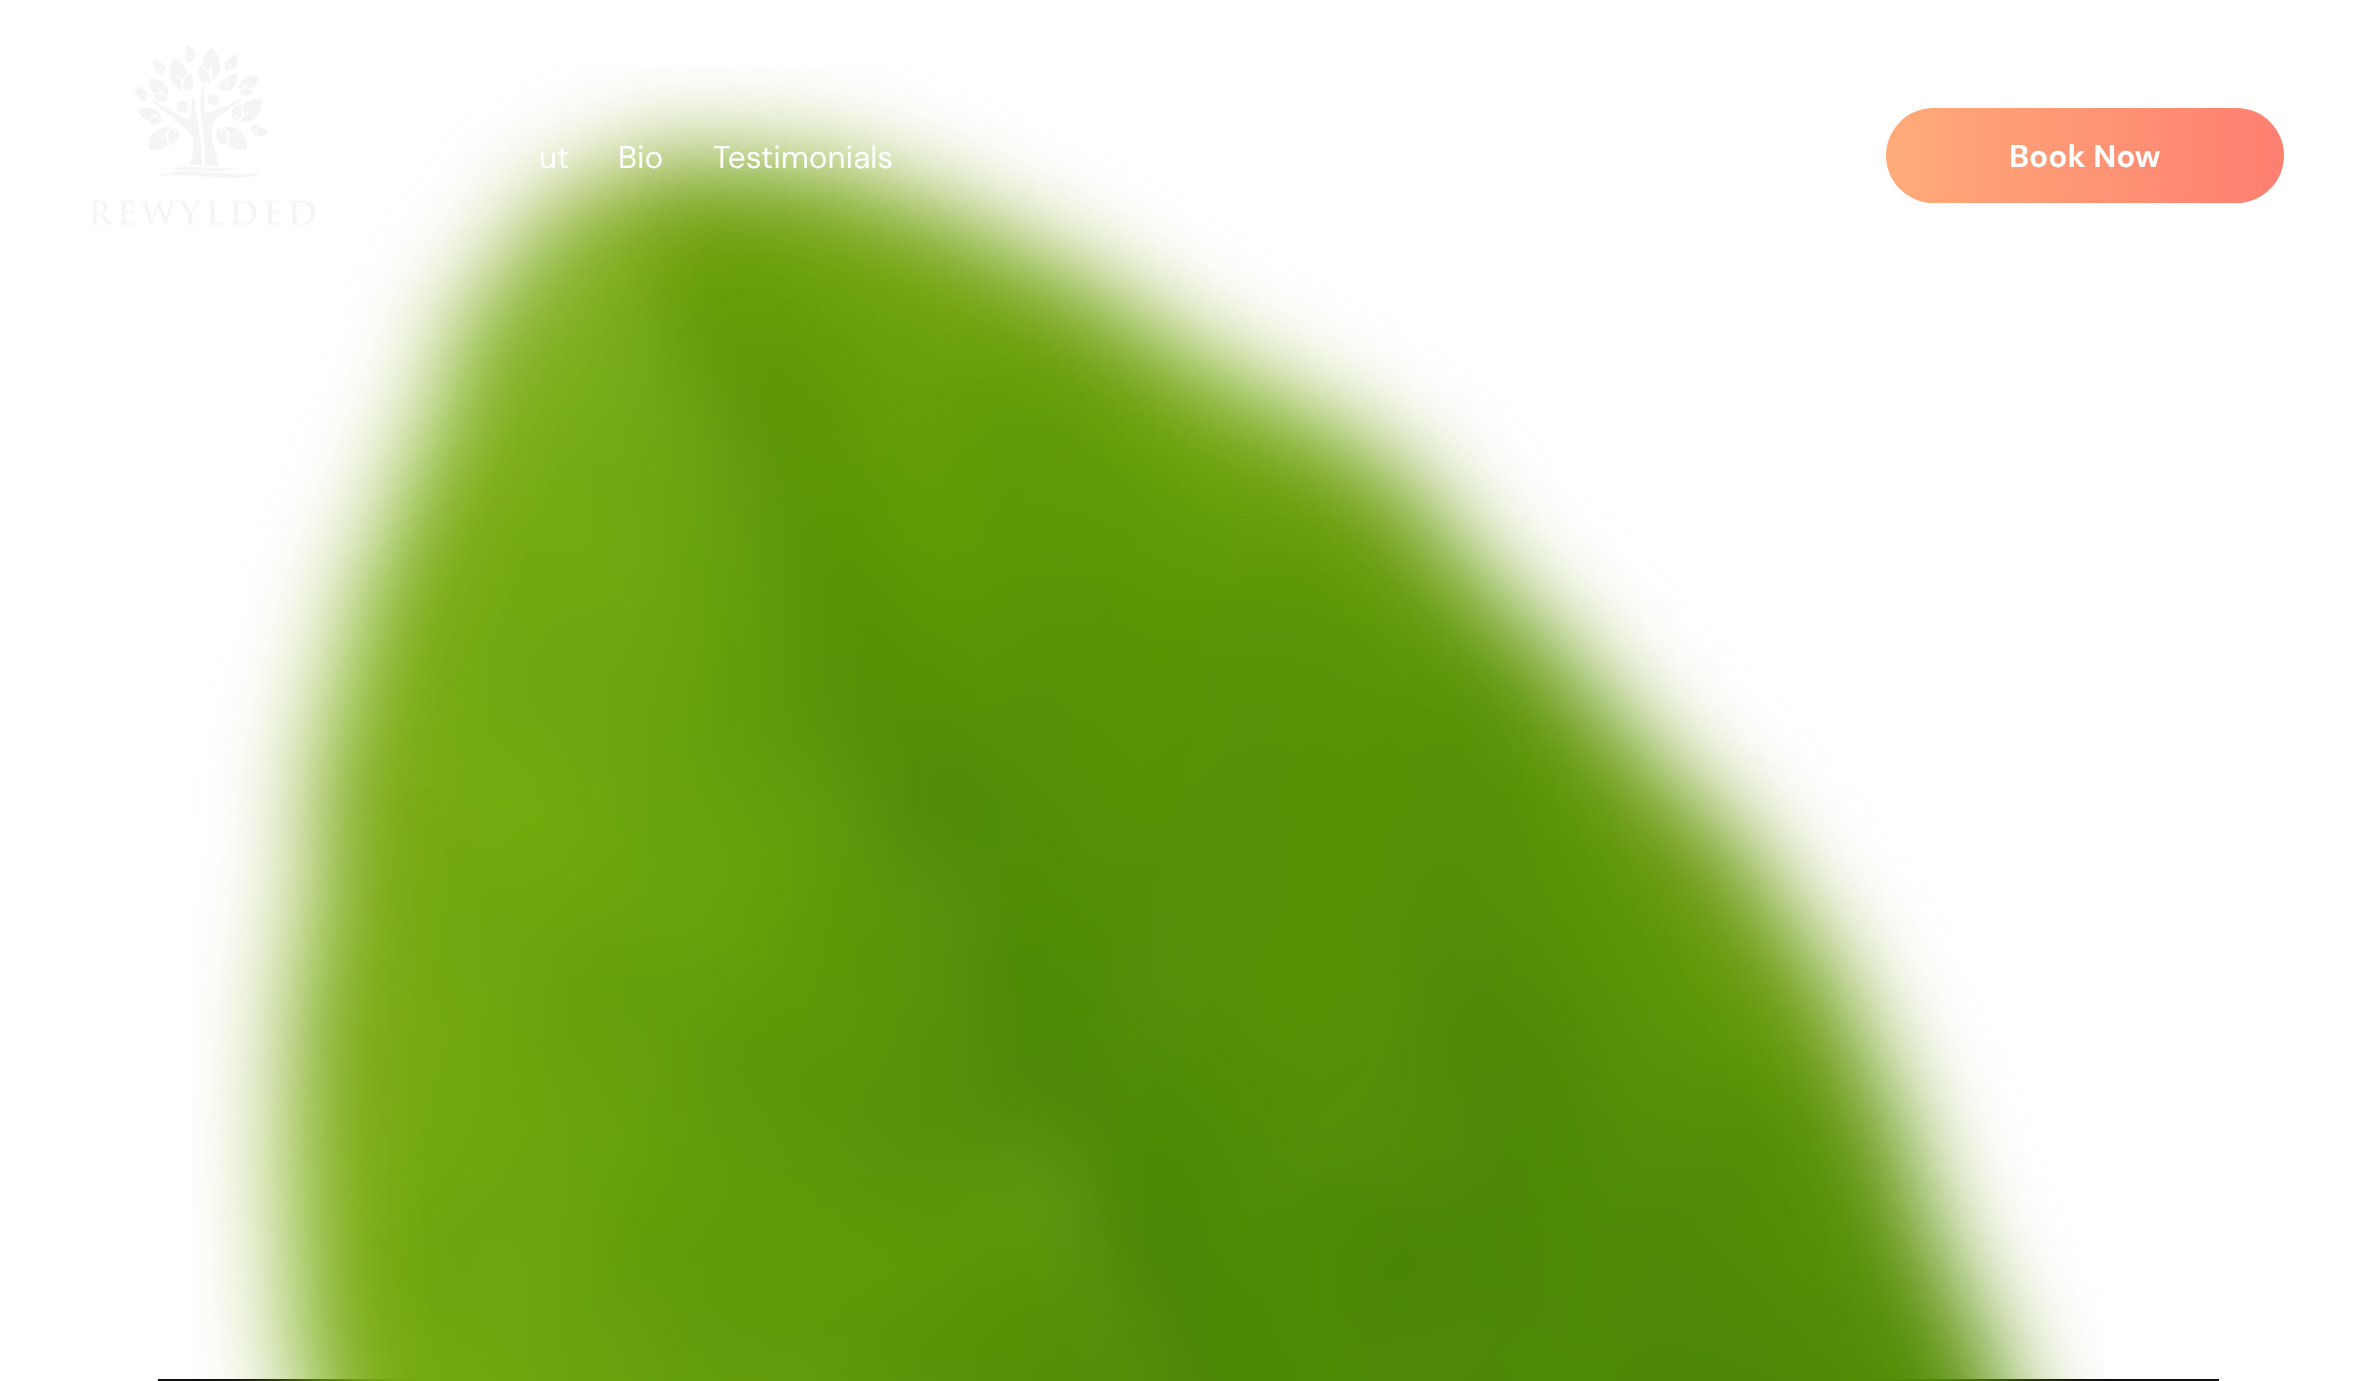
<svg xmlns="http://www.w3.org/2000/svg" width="2373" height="1381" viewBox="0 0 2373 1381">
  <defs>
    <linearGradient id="g1" gradientUnits="userSpaceOnUse" x1="1886" y1="155" x2="2284" y2="155"><stop offset="0" stop-color="rgb(255,171,121)"/><stop offset="1" stop-color="rgb(254,127,112)"/></linearGradient>
  </defs>
  <rect width="100%" height="100%" fill="rgb(255,255,255)"/>
  <rect x="158" y="1379" width="2061" height="2" fill="rgb(15,15,15)"/>
  <image x="191" y="65" width="1914" height="1316" href="pic1.png"/>
  <image x="92" y="45" width="223" height="180" href="pic2.png"/>
  <g font-family="DM Sans" font-size="31.5" fill="rgb(255,255,255)">
    <text x="539" y="168">ut</text>
    <text x="618" y="168">Bio</text>
    <text x="713" y="168">Testimonials</text>
  </g>
  <rect x="1886" y="108" width="398" height="95" rx="47.5" fill="url(#g1)"/>
  <text x="2009" y="167" font-family="DM Sans" font-size="31.5" font-weight="bold" fill="rgb(255,255,255)">Book Now</text>
</svg>
